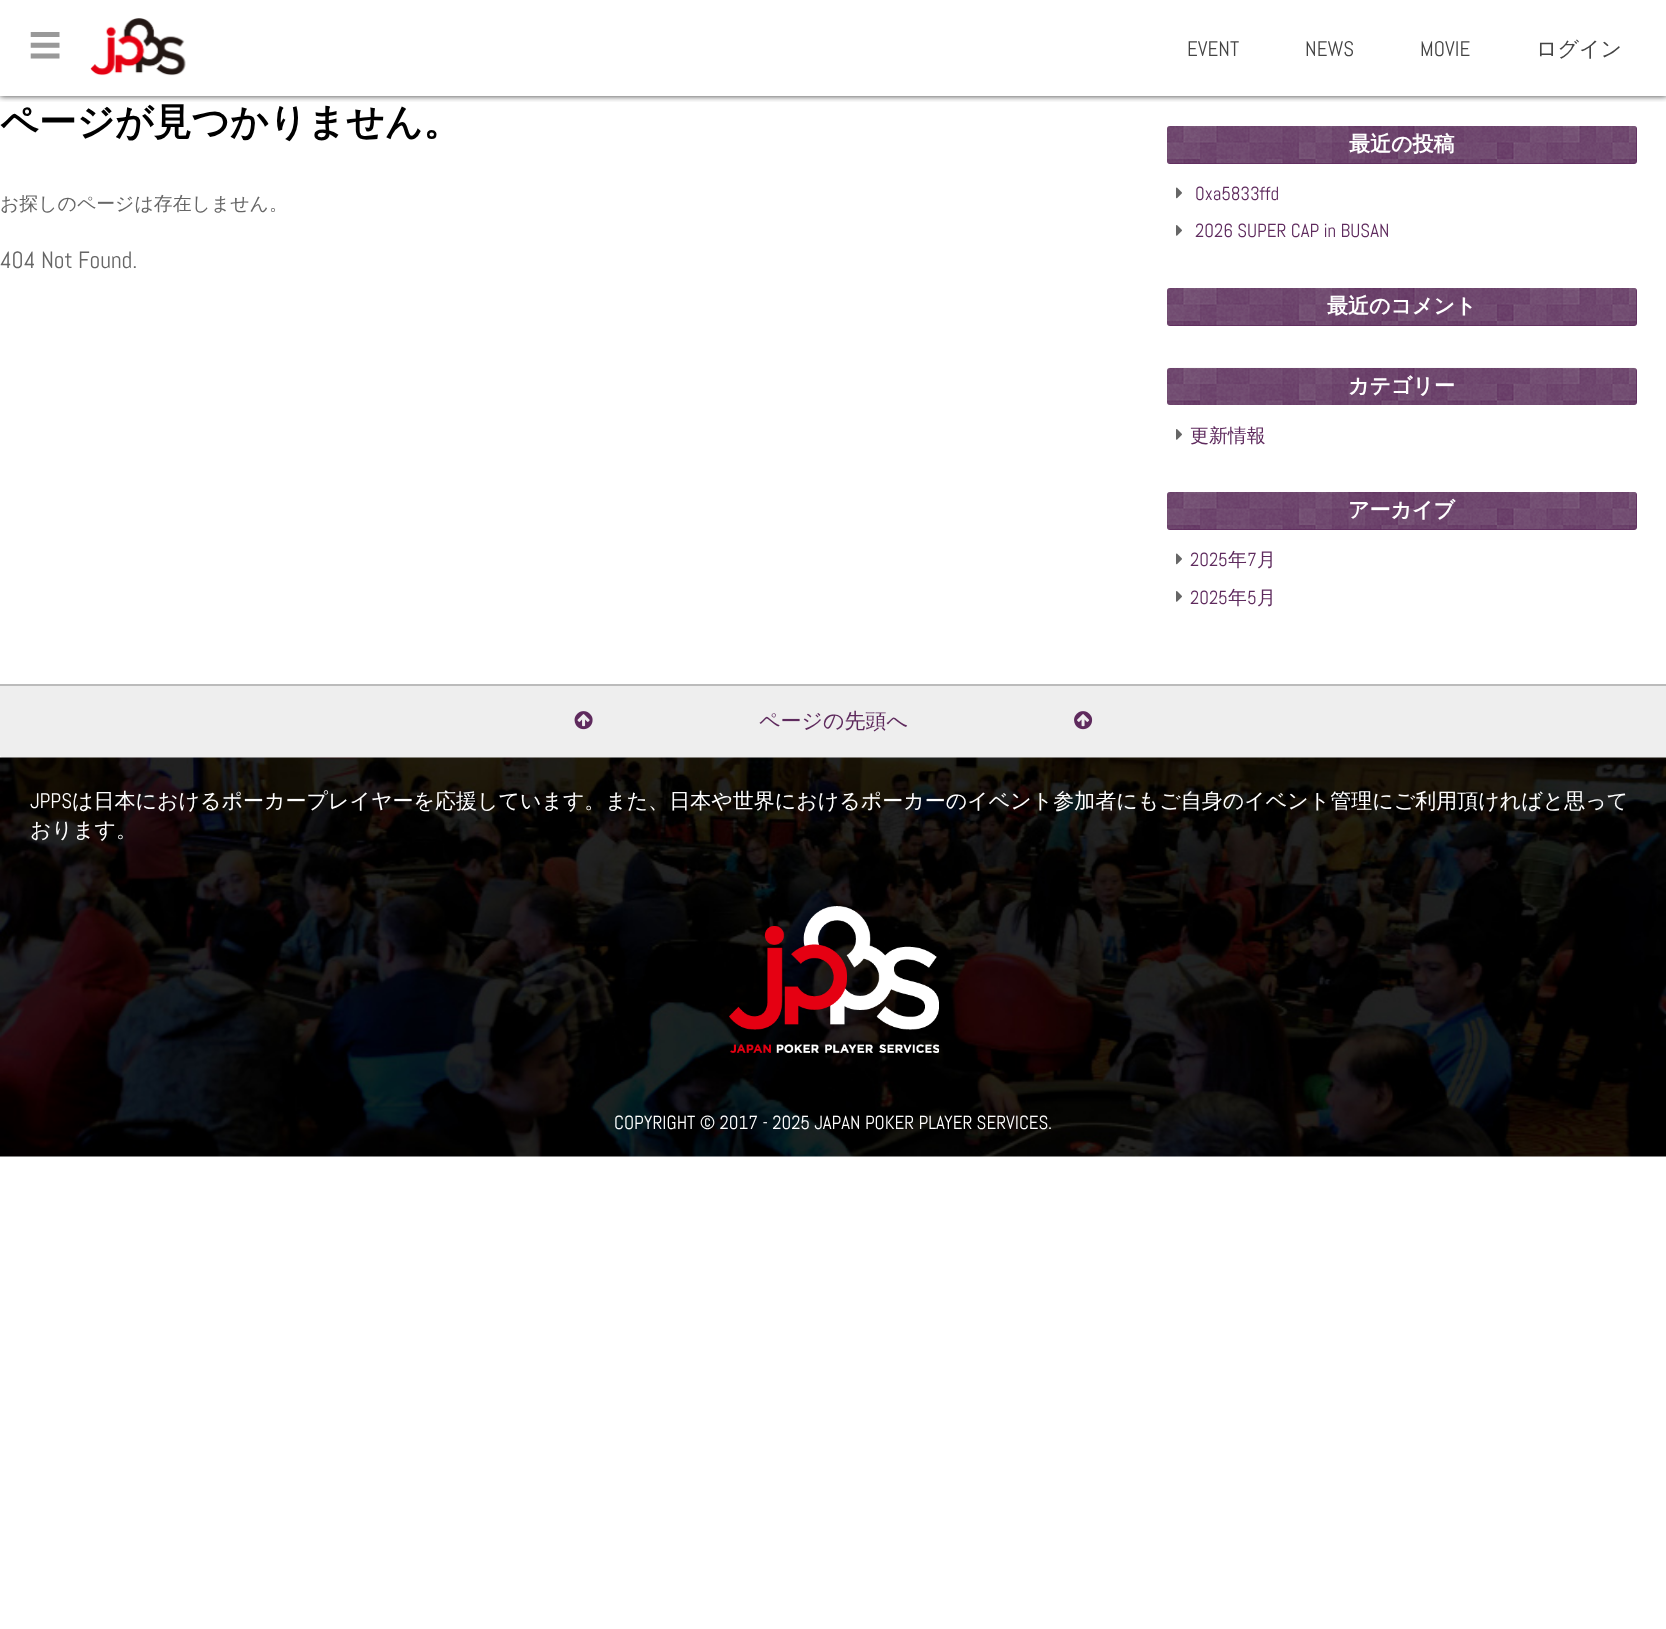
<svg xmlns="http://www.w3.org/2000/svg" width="1666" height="1629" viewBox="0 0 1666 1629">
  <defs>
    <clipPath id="clip1"><rect x="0" y="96" width="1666" height="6"/></clipPath>
  </defs>
  <rect width="100%" height="100%" fill="rgb(255,255,255)"/>
  <g clip-path="url(#clip1)">
    <rect x="0" y="0" width="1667" height="96" fill="rgba(0,0,0,0.8)" filter="blur(3px)"/>
  </g>
  <text x="29" y="57" font-family="WenQuanYi Zen Hei" font-size="32" font-weight="500" fill="rgb(153,153,153)">☰</text>
  <image x="90" y="18" width="96" height="58" href="pic1.png"/>
  <g font-family="Abel" font-size="21" fill="rgb(68,68,68)">
    <text x="1187" y="56">EVENT</text>
    <text x="1305" y="56">NEWS</text>
    <text x="1420" y="56">MOVIE</text>
  </g>
  <text x="1536" y="56" font-family="WenQuanYi Zen Hei" font-size="21" font-weight="500" fill="rgb(68,68,68)">ログイン</text>
  <text x="0" y="135" font-family="WenQuanYi Zen Hei" font-size="37.75" font-weight="bold" fill="rgb(0,0,0)">ページが見つかりません。</text>
  <text x="0" y="210" font-family="WenQuanYi Zen Hei" font-size="18.9" font-weight="500" fill="rgb(102,102,102)">お探しのページは存在しません。</text>
  <text x="0" y="268" font-family="Abel" font-size="23.5" fill="rgb(102,102,102)">404 Not Found.</text>
  <rect x="1167" y="126" width="470" height="38" rx="3" fill="rgb(94,42,93)"/>
  <image x="1167" y="126" width="470" height="38" href="pic2.png"/>
  <text x="1349" y="151" font-family="WenQuanYi Zen Hei" font-size="21" font-weight="bold" fill="rgb(255,255,255)">最近の投稿</text>
  <image x="1176" y="187" width="6" height="12" href="pic3.png"/>
  <text x="1195" y="200" font-family="Abel" font-size="18.9" fill="rgb(94,42,93)">0xa5833ffd</text>
  <image x="1176" y="225" width="6" height="11" href="pic4.png"/>
  <text x="1195" y="237" font-family="Abel" font-size="18.9" fill="rgb(94,42,93)">2026 SUPER CAP in BUSAN</text>
  <rect x="1167" y="288" width="470" height="38" rx="3" fill="rgb(94,42,93)"/>
  <image x="1167" y="288" width="470" height="38" href="pic5.png"/>
  <text x="1327" y="313" font-family="WenQuanYi Zen Hei" font-size="21" font-weight="bold" fill="rgb(255,255,255)">最近のコメント</text>
  <rect x="1167" y="368" width="470" height="37" rx="3" fill="rgb(94,42,93)"/>
  <image x="1167" y="367" width="470" height="38" href="pic6.png"/>
  <text x="1348" y="393" font-family="WenQuanYi Zen Hei" font-size="21" font-weight="bold" fill="rgb(255,255,255)">カテゴリー</text>
  <image x="1176" y="429" width="6" height="11" href="pic4.png"/>
  <text x="1190" y="442" font-family="WenQuanYi Zen Hei" font-size="18.9" font-weight="500" fill="rgb(94,42,93)">更新情報</text>
  <rect x="1167" y="492" width="470" height="38" rx="3" fill="rgb(94,42,93)"/>
  <image x="1167" y="492" width="470" height="38" href="pic7.png"/>
  <text x="1348" y="517" font-family="WenQuanYi Zen Hei" font-size="21" font-weight="bold" fill="rgb(255,255,255)">アーカイブ</text>
  <image x="1176" y="553" width="6" height="12" href="pic3.png"/>
  <text x="1190" y="566" font-family="Abel" font-size="18.9" fill="rgb(94,42,93)">2025</text>
  <text x="1228" y="566" font-family="WenQuanYi Zen Hei" font-size="18.9" font-weight="500" fill="rgb(94,42,93)">年</text>
  <text x="1247" y="566" font-family="Abel" font-size="18.9" fill="rgb(94,42,93)">7</text>
  <text x="1257" y="566" font-family="WenQuanYi Zen Hei" font-size="18.9" font-weight="500" fill="rgb(94,42,93)">月</text>
  <image x="1176" y="591" width="6" height="11" href="pic4.png"/>
  <text x="1190" y="604" font-family="Abel" font-size="18.9" fill="rgb(94,42,93)">2025</text>
  <text x="1228" y="604" font-family="WenQuanYi Zen Hei" font-size="18.9" font-weight="500" fill="rgb(94,42,93)">年</text>
  <text x="1247" y="604" font-family="Abel" font-size="18.9" fill="rgb(94,42,93)">5</text>
  <text x="1257" y="604" font-family="WenQuanYi Zen Hei" font-size="18.9" font-weight="500" fill="rgb(94,42,93)">月</text>
  <path d="M0 684H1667V755C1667 756.5 1665.5 758 1664 758H3C1.5 758 0 756.5 0 755Z" fill="rgb(238,238,238)"/>
  <rect x="0" y="684" width="1666" height="2" fill="rgb(187,187,187)"/>
  <image x="574" y="711" width="19" height="19" href="pic8.png"/>
  <text x="759" y="728" font-family="WenQuanYi Zen Hei" font-size="21" font-weight="500" fill="rgb(94,42,93)">ページの先頭へ</text>
  <image x="1074" y="711" width="19" height="19" href="pic9.png"/>
  <image x="0" y="757" width="1666" height="400" href="pic10.png"/>
  <text x="30" y="808" font-family="Abel" font-size="21" fill="rgb(255,255,255)">JPPS</text>
  <g font-family="WenQuanYi Zen Hei" font-size="21" font-weight="500" fill="rgb(255,255,255)">
    <text x="72" y="808">は日本におけるポーカープレイヤーを応援しています。また、日本や世界におけるポーカーのイベント参加者にもご自身のイベント管理にご利用頂ければと思って</text>
    <text x="30" y="837">おります。</text>
  </g>
  <image x="729" y="906" width="210" height="147" href="pic11.png"/>
  <text x="614" y="1129" font-family="Abel" font-size="18.9" fill="rgb(255,255,255)">COPYRIGHT © 2017 - 2025 JAPAN POKER PLAYER SERVICES.</text>
</svg>
